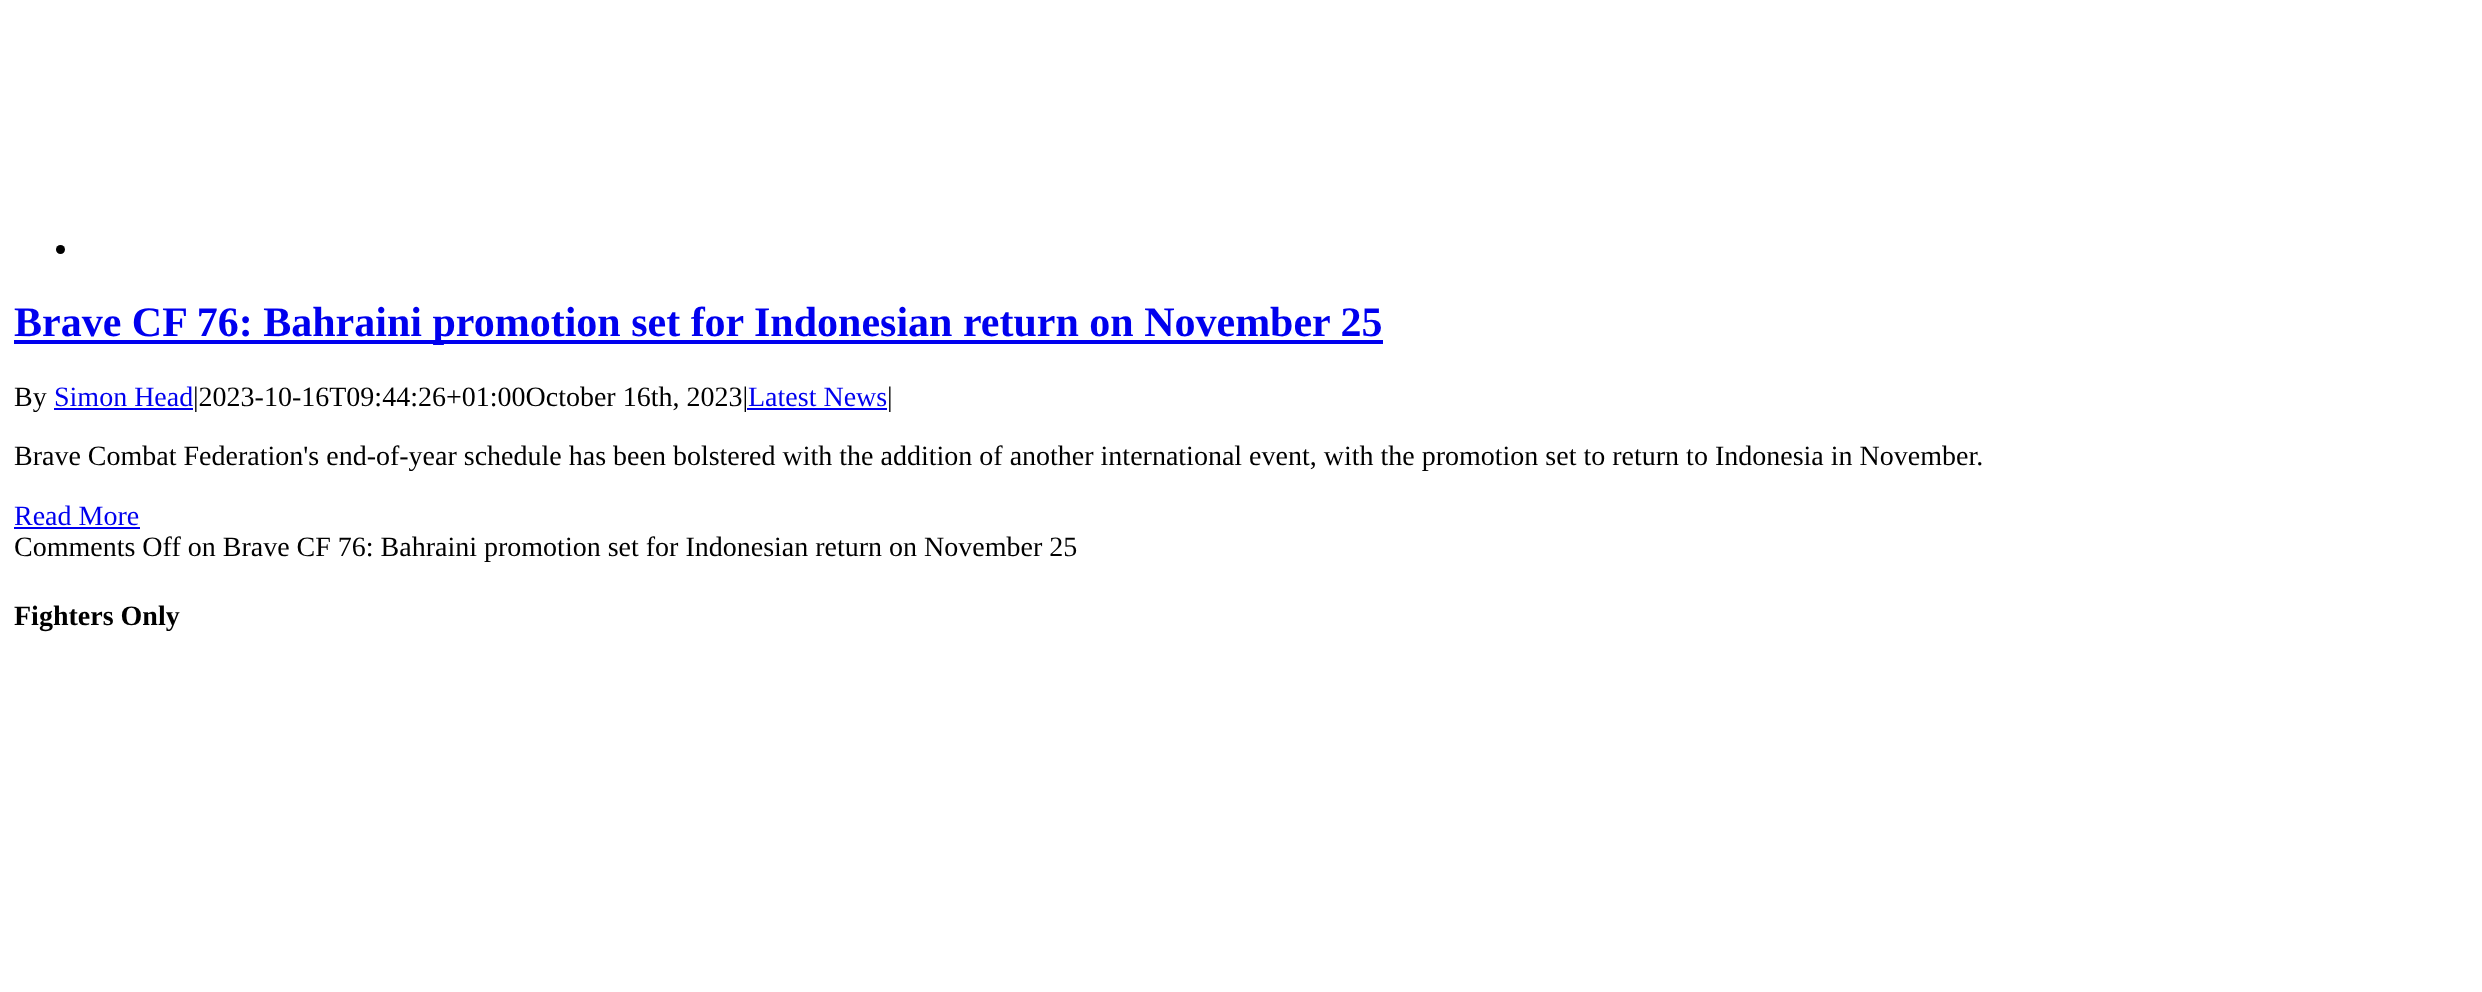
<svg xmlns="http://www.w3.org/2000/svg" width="2482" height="992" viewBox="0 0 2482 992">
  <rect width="100%" height="100%" fill="rgb(255,255,255)"/>
  <circle cx="60.5" cy="249.5" r="4.5" fill="rgb(0,0,0)"/>
  <rect x="14" y="340" width="1369" height="4" fill="rgb(0,0,238)"/>
  <text x="14" y="336" font-family="Liberation Serif" font-size="42" font-weight="bold" fill="rgb(0,0,238)">Brave CF 76: Bahraini promotion set for Indonesian return on November 25</text>
  <text x="14" y="406" font-family="Liberation Serif" font-size="28" fill="rgb(0,0,0)">By</text>
  <text x="54" y="406" font-family="Liberation Serif" font-size="28" fill="rgb(0,0,238)">Simon Head</text>
  <rect x="54" y="408" width="139" height="2" fill="rgb(0,0,238)"/>
  <text x="193" y="406" font-family="Liberation Serif" font-size="28" fill="rgb(0,0,0)">|2023-10-16T09:44:26+01:00October 16th, 2023|</text>
  <text x="748" y="406" font-family="Liberation Serif" font-size="28" fill="rgb(0,0,238)">Latest News</text>
  <rect x="747" y="408" width="140" height="2" fill="rgb(0,0,238)"/>
  <g font-family="Liberation Serif" font-size="28" fill="rgb(0,0,0)">
    <text x="887" y="406">|</text>
    <text x="14" y="465">Brave Combat Federation's end-of-year schedule has been bolstered with the addition of another international event, with the promotion set to return to Indonesia in November.</text>
  </g>
  <text x="14" y="525" font-family="Liberation Serif" font-size="28" fill="rgb(0,0,238)">Read More</text>
  <rect x="14" y="527" width="126" height="2" fill="rgb(0,0,238)"/>
  <text x="14" y="556" font-family="Liberation Serif" font-size="28" fill="rgb(0,0,0)">Comments Off on Brave CF 76: Bahraini promotion set for Indonesian return on November 25</text>
  <text x="14" y="625" font-family="Liberation Serif" font-size="28" font-weight="bold" fill="rgb(0,0,0)">Fighters Only</text>
</svg>
